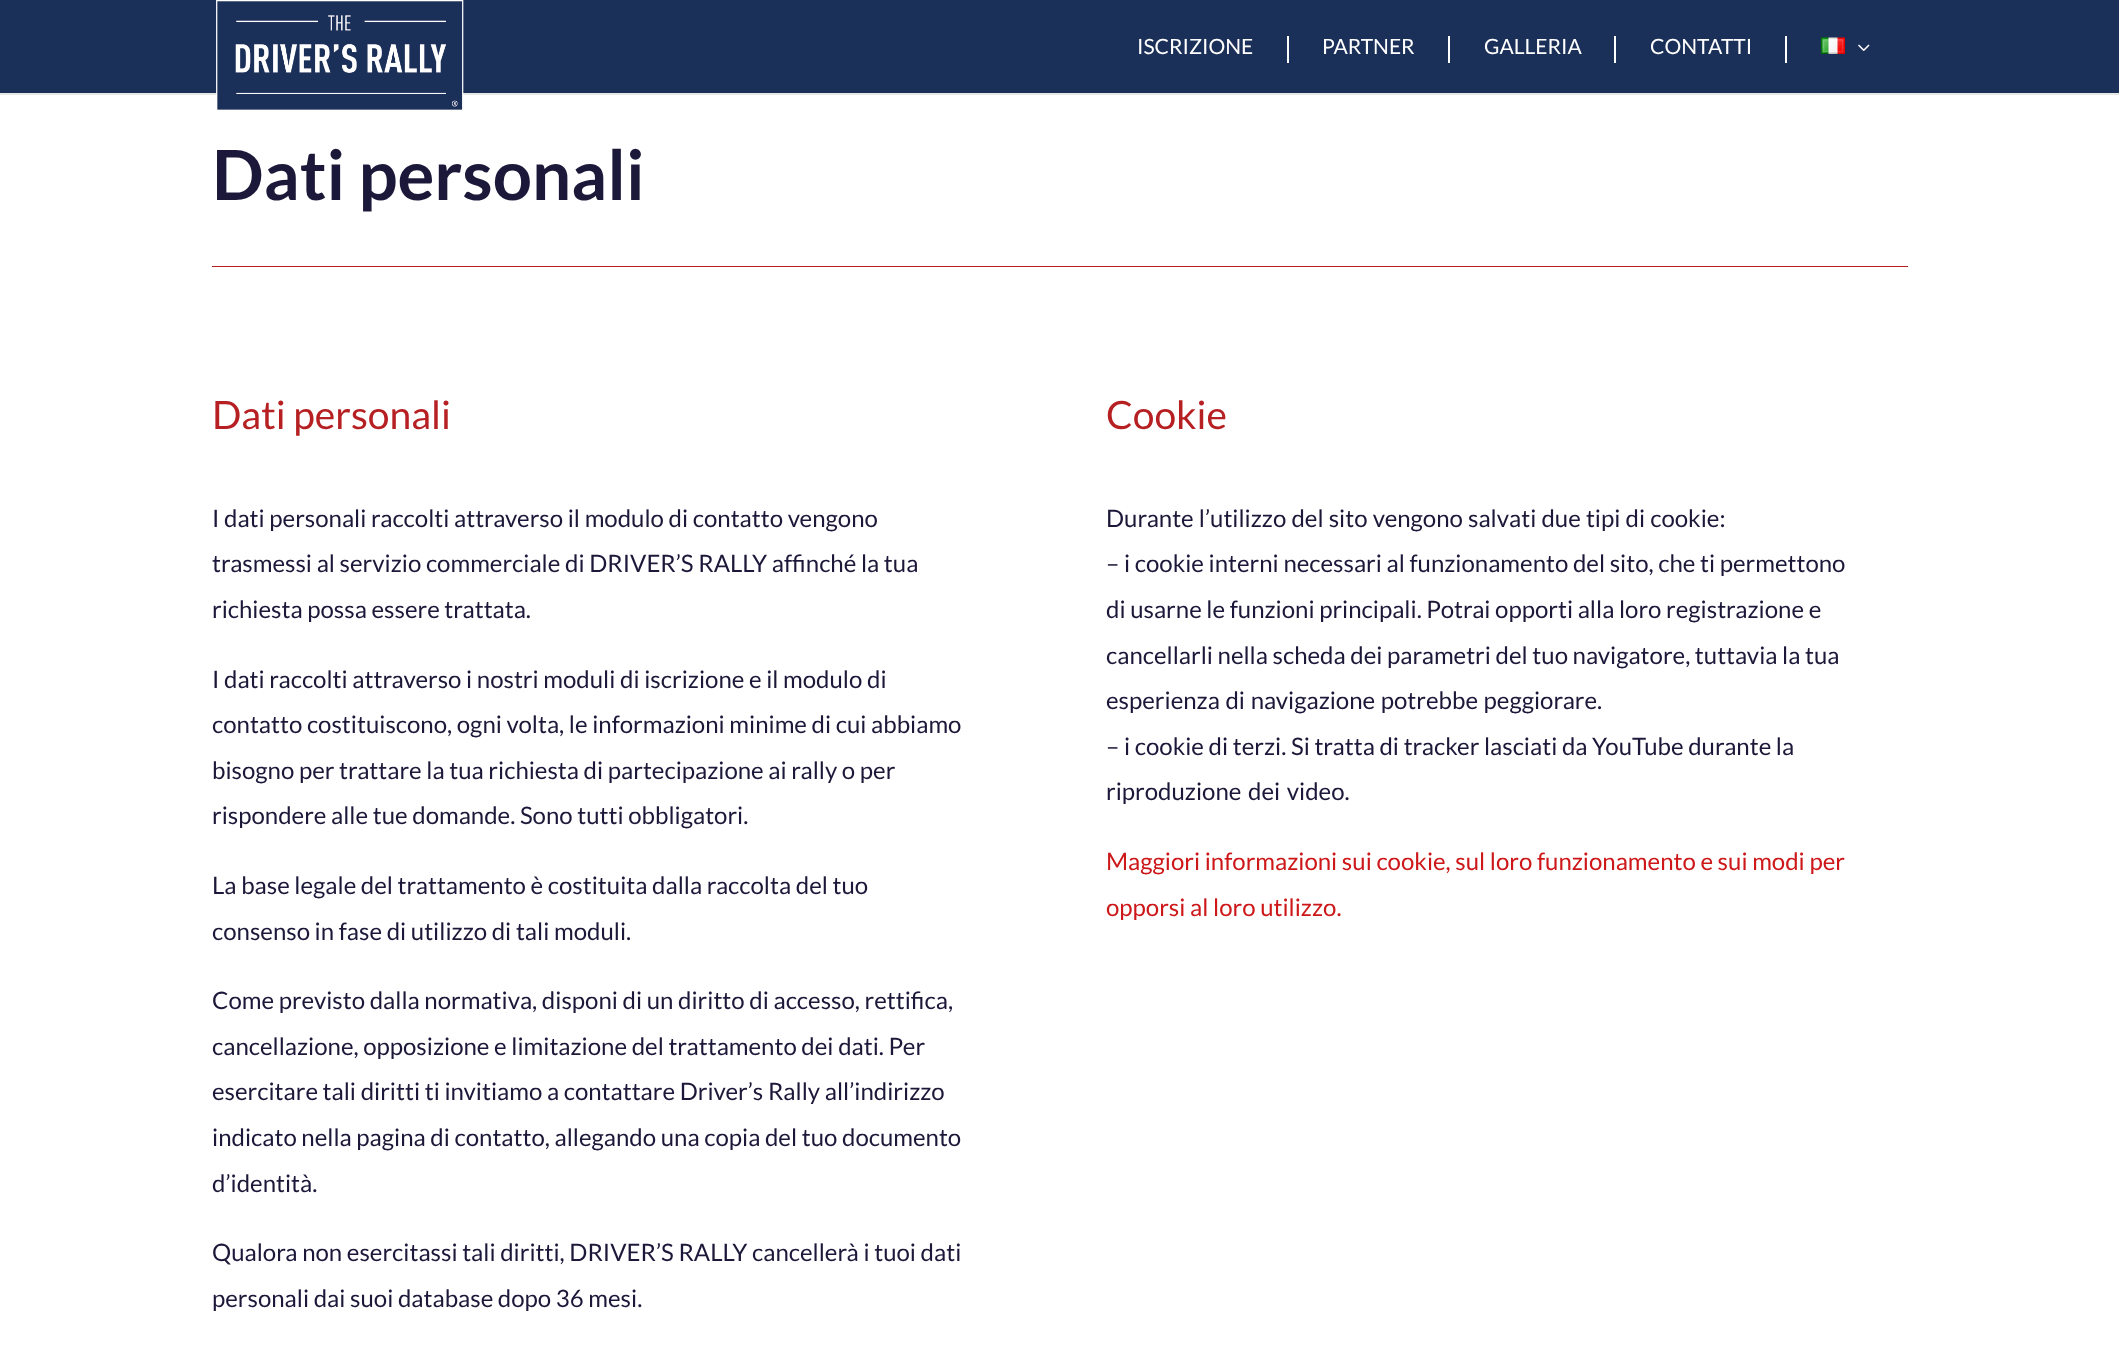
<svg xmlns="http://www.w3.org/2000/svg" width="2119" height="1358" viewBox="0 0 2119 1358">
  <rect width="100%" height="100%" fill="rgb(255,255,255)"/>
  <path d="M0 93V95H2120V2V93Z" fill="rgb(230,230,230)"/>
  <rect x="0" y="0" width="2119" height="93" fill="rgb(27,48,88)"/>
  <image x="216" y="0" width="248" height="110" href="pic1.png"/>
  <rect x="1287" y="36" width="2" height="27" fill="rgb(255,255,255)"/>
  <text x="1137" y="54" font-family="Lato" font-size="21" fill="rgb(255,255,255)">ISCRIZIONE</text>
  <rect x="1448" y="36" width="2" height="27" fill="rgb(255,255,255)"/>
  <text x="1322" y="54" font-family="Lato" font-size="21" fill="rgb(255,255,255)">PARTNER</text>
  <rect x="1614" y="36" width="2" height="27" fill="rgb(255,255,255)"/>
  <text x="1484" y="54" font-family="Lato" font-size="21" fill="rgb(255,255,255)">GALLERIA</text>
  <rect x="1785" y="36" width="2" height="27" fill="rgb(255,255,255)"/>
  <text x="1650" y="54" font-family="Lato" font-size="21" fill="rgb(255,255,255)">CONTATTI</text>
  <image x="1820" y="37" width="25" height="17" href="pic2.png"/>
  <image x="1858" y="44" width="12" height="7" href="pic3.png"/>
  <rect x="212" y="266" width="1696" height="1" fill="rgb(182,32,35)"/>
  <text x="212" y="200" font-family="Lato" font-size="69" font-weight="bold" fill="rgb(28,24,57)">Dati personali</text>
  <text x="212" y="429" font-family="Lato" font-size="39" fill="rgb(182,32,35)">Dati personali</text>
  <g font-family="Lato" font-size="24" fill="rgb(28,24,57)">
    <text>
      <tspan x="212" y="527">I dati personali raccolti attraverso il modulo di contatto vengono</tspan>
      <tspan x="212" y="572">trasmessi al servizio commerciale di DRIVER’S RALLY affinché la tua</tspan>
      <tspan x="212" y="618">richiesta possa essere trattata.</tspan>
    </text>
    <text>
      <tspan x="212" y="688">I dati raccolti attraverso i nostri moduli di iscrizione e il modulo di</tspan>
      <tspan x="212" y="733">contatto costituiscono, ogni volta, le informazioni minime di cui abbiamo</tspan>
      <tspan x="212" y="779">bisogno per trattare la tua richiesta di partecipazione ai rally o per</tspan>
      <tspan x="212" y="824">rispondere alle tue domande. Sono tutti obbligatori.</tspan>
    </text>
    <text>
      <tspan x="212" y="894">La base legale del trattamento è costituita dalla raccolta del tuo</tspan>
      <tspan x="212" y="940">consenso in fase di utilizzo di tali moduli.</tspan>
    </text>
    <text>
      <tspan x="212" y="1009">Come previsto dalla normativa, disponi di un diritto di accesso, rettifica,</tspan>
      <tspan x="212" y="1055">cancellazione, opposizione e limitazione del trattamento dei dati. Per</tspan>
      <tspan x="212" y="1100">esercitare tali diritti ti invitiamo a contattare Driver’s Rally all’indirizzo</tspan>
      <tspan x="212" y="1146">indicato nella pagina di contatto, allegando una copia del tuo documento</tspan>
      <tspan x="212" y="1192">d’identità.</tspan>
    </text>
    <text>
      <tspan x="212" y="1261">Qualora non esercitassi tali diritti, DRIVER’S RALLY cancellerà i tuoi dati</tspan>
      <tspan x="212" y="1307">personali dai suoi database dopo 36 mesi.</tspan>
    </text>
  </g>
  <text x="1106" y="429" font-family="Lato" font-size="39" fill="rgb(182,32,35)">Cookie</text>
  <g font-family="Lato" font-size="24" fill="rgb(28,24,57)">
    <text>
      <tspan x="1106" y="527" word-spacing="0.5">Durante l’utilizzo del sito vengono salvati due tipi di cookie:</tspan>
      <tspan x="1106" y="572">– i cookie interni necessari al funzionamento del sito, che ti permettono</tspan>
      <tspan x="1106" y="618">di usarne le funzioni principali. Potrai opporti alla loro registrazione e</tspan>
      <tspan x="1106" y="664">cancellarli nella scheda dei parametri del tuo navigatore, tuttavia la tua</tspan>
      <tspan x="1106" y="709" word-spacing="1">esperienza di navigazione potrebbe peggiorare.</tspan>
      <tspan x="1106" y="755">– i cookie di terzi. Si tratta di tracker lasciati da YouTube durante la</tspan>
      <tspan x="1106" y="800" word-spacing="2">riproduzione dei video.</tspan>
    </text>
  </g>
  <g font-family="Lato" font-size="24" fill="rgb(205,23,25)">
    <text>
      <tspan x="1106" y="870">Maggiori informazioni sui cookie, sul loro funzionamento e sui modi per</tspan>
      <tspan x="1106" y="916">opporsi al loro utilizzo.</tspan>
    </text>
  </g>
</svg>
